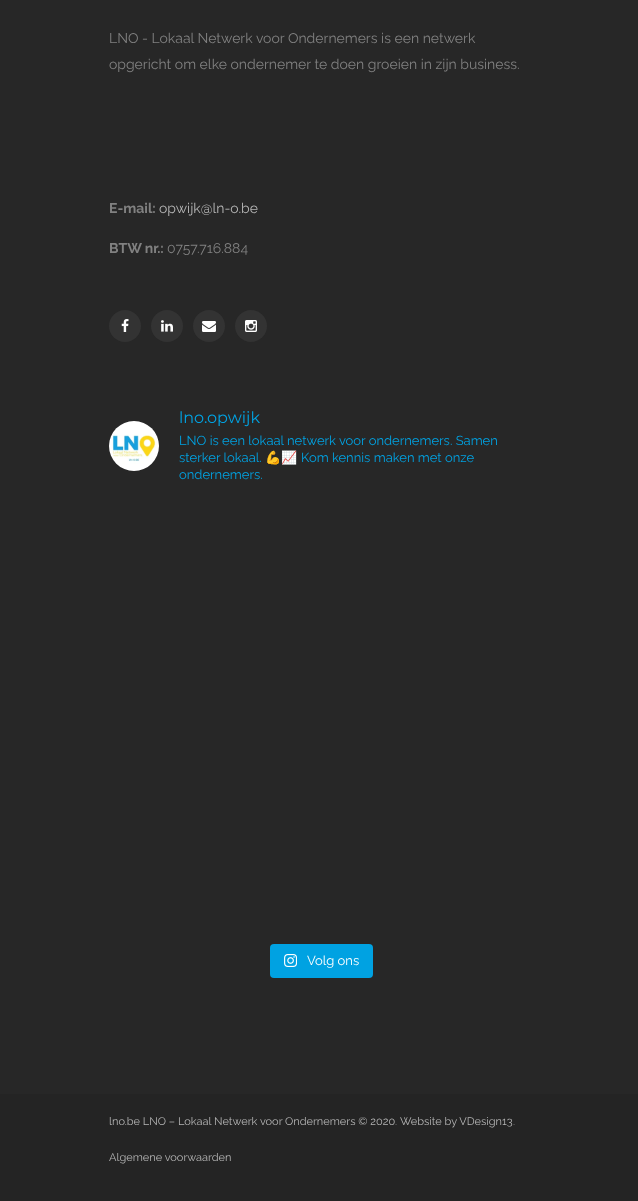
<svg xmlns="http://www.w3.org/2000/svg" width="638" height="1201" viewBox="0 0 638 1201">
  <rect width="100%" height="100%" fill="rgb(39,39,39)"/>
  <g font-family="Raleway" font-size="14" fill="rgb(129,129,129)">
    <text>
      <tspan x="109" y="43">LNO - Lokaal Netwerk voor Ondernemers is een netwerk</tspan>
      <tspan x="109" y="69">opgericht om elke ondernemer te doen groeien in zijn business.</tspan>
    </text>
  </g>
  <text x="109" y="213" font-family="Raleway" font-size="14" font-weight="bold" fill="rgb(129,129,129)">E-mail:</text>
  <text x="159" y="213" font-family="Raleway" font-size="14" fill="rgb(181,181,181)">opwijk@ln-o.be</text>
  <text x="109" y="253" font-family="Raleway" font-size="14" font-weight="bold" fill="rgb(129,129,129)">BTW nr.:</text>
  <text x="167" y="253" font-family="Raleway" font-size="14" fill="rgb(129,129,129)">0757.716.884</text>
  <circle cx="125" cy="326" r="16" fill="rgb(51,51,51)"/>
  <image x="121" y="319" width="8" height="13" href="pic1.png"/>
  <circle cx="167" cy="326" r="16" fill="rgb(51,51,51)"/>
  <image x="161" y="320" width="12" height="12" href="pic2.png"/>
  <circle cx="209" cy="326" r="16" fill="rgb(51,51,51)"/>
  <image x="202" y="321" width="14" height="11" href="pic3.png"/>
  <circle cx="251" cy="326" r="16" fill="rgb(51,51,51)"/>
  <image x="245" y="320" width="12" height="12" href="pic4.png"/>
  <image x="109" y="421" width="50" height="50" href="pic5.png"/>
  <text x="179" y="423" font-family="Montserrat" font-size="16" fill="rgb(0,162,226)">lno.opwijk</text>
  <g font-family="Raleway" font-size="13" fill="rgb(0,162,226)">
    <text>
      <tspan x="179" y="445">LNO is een lokaal netwerk voor ondernemers. Samen</tspan>
      <tspan x="179" y="462">sterker lokaal.</tspan>
    </text>
  </g>
  <text x="265" y="462" font-family="Noto Color Emoji" font-size="13" fill="rgb(0,162,226)">💪📈</text>
  <g font-family="Raleway" font-size="13" fill="rgb(0,162,226)">
    <text x="301" y="462">Kom kennis maken met onze</text>
    <text x="179" y="479">ondernemers.</text>
  </g>
  <rect x="270" y="944" width="103" height="34" rx="4" fill="rgb(0,162,226)"/>
  <image x="284" y="954" width="13" height="13" href="pic6.png"/>
  <text x="307" y="965" font-family="Raleway" font-size="13" fill="rgb(255,255,255)">Volg ons</text>
  <rect x="0" y="1094" width="638" height="107" fill="rgb(36,36,36)"/>
  <text x="109" y="1125" font-family="Raleway" font-size="11" fill="rgb(181,181,181)">lno.be LNO – Lokaal Netwerk voor Ondernemers © 2020</text>
  <text x="395" y="1125" font-family="Raleway" font-size="11" fill="rgb(129,129,129)">.</text>
  <text x="400" y="1125" font-family="Raleway" font-size="11" fill="rgb(181,181,181)">Website by VDesign13</text>
  <text x="513" y="1125" font-family="Raleway" font-size="11" fill="rgb(129,129,129)">.</text>
  <text x="109" y="1161" font-family="Raleway" font-size="11" fill="rgb(181,181,181)">Algemene voorwaarden</text>
</svg>
